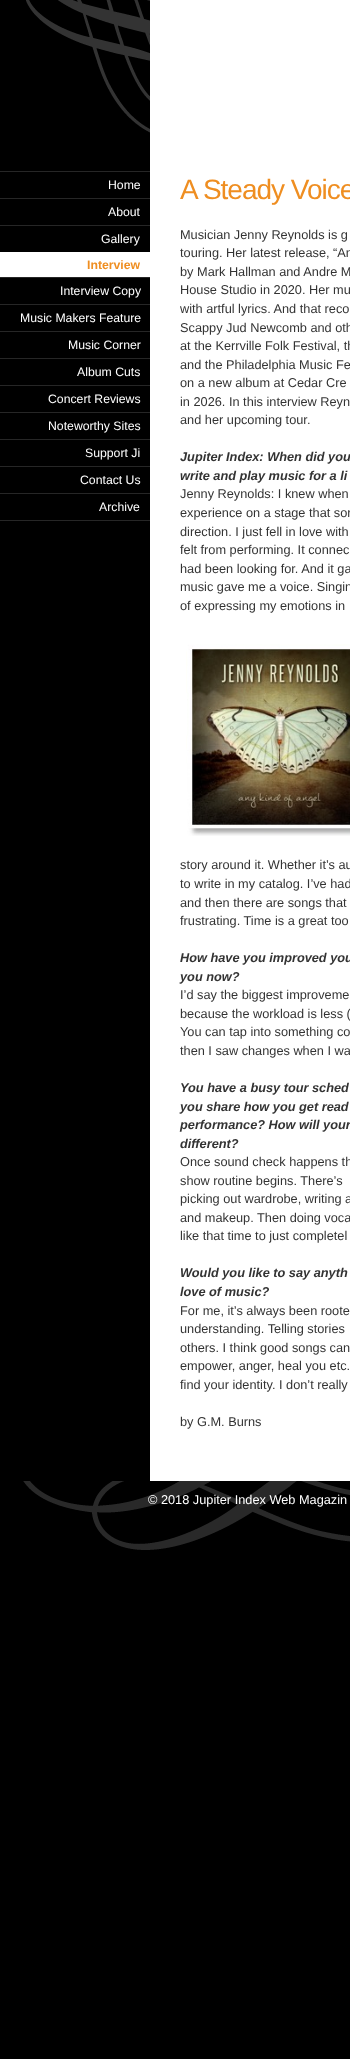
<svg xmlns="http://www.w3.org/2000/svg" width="350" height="2059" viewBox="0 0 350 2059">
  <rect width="100%" height="100%" fill="rgb(0,0,0)"/>
  <image x="26" y="0" width="124" height="133" href="pic1.png"/>
  <rect x="150" y="0" width="200" height="1481" fill="rgb(255,255,255)"/>
  <rect x="0" y="520" width="150" height="1" fill="rgb(38,38,38)"/>
  <rect x="0" y="171" width="150" height="1" fill="rgb(38,38,38)"/>
  <text x="108" y="189" font-family="Liberation Sans" font-size="12.25" fill="rgb(255,255,255)">Home</text>
  <rect x="0" y="198" width="150" height="1" fill="rgb(38,38,38)"/>
  <text x="108" y="216" font-family="Liberation Sans" font-size="12.25" fill="rgb(255,255,255)">About</text>
  <rect x="0" y="225" width="150" height="1" fill="rgb(38,38,38)"/>
  <text x="101" y="243" font-family="Liberation Sans" font-size="12.25" fill="rgb(255,255,255)">Gallery</text>
  <rect x="0" y="252" width="150" height="25" fill="rgb(255,255,255)"/>
  <text x="87" y="269" font-family="Liberation Sans" font-size="12.25" font-weight="bold" fill="rgb(239,142,33)">Interview</text>
  <rect x="0" y="277" width="150" height="1" fill="rgb(38,38,38)"/>
  <text x="60" y="295" font-family="Liberation Sans" font-size="12.25" fill="rgb(255,255,255)">Interview Copy</text>
  <rect x="0" y="304" width="150" height="1" fill="rgb(38,38,38)"/>
  <text x="20" y="322" font-family="Liberation Sans" font-size="12.25" fill="rgb(255,255,255)">Music Makers Feature</text>
  <rect x="0" y="331" width="150" height="1" fill="rgb(38,38,38)"/>
  <text x="68" y="349" font-family="Liberation Sans" font-size="12.25" fill="rgb(255,255,255)">Music Corner</text>
  <rect x="0" y="358" width="150" height="1" fill="rgb(38,38,38)"/>
  <text x="77" y="376" font-family="Liberation Sans" font-size="12.25" fill="rgb(255,255,255)">Album Cuts</text>
  <rect x="0" y="385" width="150" height="1" fill="rgb(38,38,38)"/>
  <text x="48" y="403" font-family="Liberation Sans" font-size="12.25" fill="rgb(255,255,255)">Concert Reviews</text>
  <rect x="0" y="412" width="150" height="1" fill="rgb(38,38,38)"/>
  <text x="48" y="430" font-family="Liberation Sans" font-size="12.25" fill="rgb(255,255,255)">Noteworthy Sites</text>
  <rect x="0" y="439" width="150" height="1" fill="rgb(38,38,38)"/>
  <text x="85" y="457" font-family="Liberation Sans" font-size="12.25" fill="rgb(255,255,255)">Support Ji</text>
  <rect x="0" y="466" width="150" height="1" fill="rgb(38,38,38)"/>
  <text x="80" y="484" font-family="Liberation Sans" font-size="12.25" fill="rgb(255,255,255)">Contact Us</text>
  <rect x="0" y="493" width="150" height="1" fill="rgb(38,38,38)"/>
  <text x="99" y="511" font-family="Liberation Sans" font-size="12.25" fill="rgb(255,255,255)">Archive</text>
  <text x="180" y="199" font-family="Liberation Sans" font-size="28" letter-spacing="-1" fill="rgb(239,142,33)">A Steady Voice</text>
  <g font-family="Liberation Sans" font-size="12.75" fill="rgb(51,51,51)">
    <text>
      <tspan x="180" y="239">Musician Jenny Reynolds is g</tspan>
      <tspan x="180" y="257">touring. Her latest release, “An</tspan>
      <tspan x="180" y="276">by Mark Hallman and Andre M</tspan>
      <tspan x="180" y="294">House Studio in 2020. Her mu</tspan>
      <tspan x="180" y="313">with artful lyrics. And that reco</tspan>
      <tspan x="180" y="332">Scappy Jud Newcomb and oth</tspan>
      <tspan x="180" y="350">at the Kerrville Folk Festival, th</tspan>
      <tspan x="180" y="369">and the Philadelphia Music Fe</tspan>
      <tspan x="180" y="387">on a new album at Cedar Cre</tspan>
      <tspan x="180" y="406">in 2026. In this interview Reyn</tspan>
      <tspan x="180" y="424">and her upcoming tour.</tspan>
    </text>
  </g>
  <g font-family="Liberation Sans" font-size="12.75" font-weight="bold" font-style="italic" fill="rgb(51,51,51)">
    <text>
      <tspan x="180" y="461">Jupiter Index: When did you</tspan>
      <tspan x="180" y="480">write and play music for a li</tspan>
    </text>
  </g>
  <g font-family="Liberation Sans" font-size="12.75" fill="rgb(51,51,51)">
    <text>
      <tspan x="180" y="498">Jenny Reynolds: I knew when</tspan>
      <tspan x="180" y="517">experience on a stage that sor</tspan>
      <tspan x="180" y="536">direction. I just fell in love with</tspan>
      <tspan x="180" y="554">felt from performing. It connec</tspan>
      <tspan x="180" y="573">had been looking for. And it ga</tspan>
      <tspan x="180" y="591">music gave me a voice. Singin</tspan>
      <tspan x="180" y="610">of expressing my emotions in</tspan>
    </text>
  </g>
  <image x="186" y="644" width="164" height="192" href="pic2.png"/>
  <g font-family="Liberation Sans" font-size="12.75" fill="rgb(51,51,51)">
    <text>
      <tspan x="180" y="869">story around it. Whether it’s au</tspan>
      <tspan x="180" y="888">to write in my catalog. I’ve had</tspan>
      <tspan x="180" y="907">and then there are songs that</tspan>
      <tspan x="180" y="925">frustrating. Time is a great too</tspan>
    </text>
  </g>
  <g font-family="Liberation Sans" font-size="12.75" font-weight="bold" font-style="italic" fill="rgb(51,51,51)">
    <text>
      <tspan x="180" y="962">How have you improved you</tspan>
      <tspan x="180" y="981">you now?</tspan>
    </text>
  </g>
  <g font-family="Liberation Sans" font-size="12.75" fill="rgb(51,51,51)">
    <text>
      <tspan x="180" y="999">I’d say the biggest improveme</tspan>
      <tspan x="180" y="1018">because the workload is less (</tspan>
      <tspan x="180" y="1036">You can tap into something co</tspan>
      <tspan x="180" y="1055">then I saw changes when I wa</tspan>
    </text>
  </g>
  <g font-family="Liberation Sans" font-size="12.75" font-weight="bold" font-style="italic" fill="rgb(51,51,51)">
    <text>
      <tspan x="180" y="1092">You have a busy tour sched</tspan>
      <tspan x="180" y="1111">you share how you get read</tspan>
      <tspan x="180" y="1129">performance? How will your</tspan>
      <tspan x="180" y="1148">different?</tspan>
    </text>
  </g>
  <g font-family="Liberation Sans" font-size="12.75" fill="rgb(51,51,51)">
    <text>
      <tspan x="180" y="1166">Once sound check happens th</tspan>
      <tspan x="180" y="1185">show routine begins. There’s</tspan>
      <tspan x="180" y="1203">picking out wardrobe, writing a</tspan>
      <tspan x="180" y="1222">and makeup. Then doing voca</tspan>
      <tspan x="180" y="1240">like that time to just completel</tspan>
    </text>
  </g>
  <g font-family="Liberation Sans" font-size="12.75" font-weight="bold" font-style="italic" fill="rgb(51,51,51)">
    <text>
      <tspan x="180" y="1277">Would you like to say anyth</tspan>
      <tspan x="180" y="1296">love of music?</tspan>
    </text>
  </g>
  <g font-family="Liberation Sans" font-size="12.75" fill="rgb(51,51,51)">
    <text>
      <tspan x="180" y="1315">For me, it’s always been roote</tspan>
      <tspan x="180" y="1333">understanding. Telling stories</tspan>
      <tspan x="180" y="1352">others. I think good songs can</tspan>
      <tspan x="180" y="1370">empower, anger, heal you etc.</tspan>
      <tspan x="180" y="1389">find your identity. I don’t really</tspan>
    </text>
    <text x="180" y="1426">by G.M. Burns</text>
  </g>
  <image x="23" y="1481" width="327" height="69" href="pic3.png"/>
  <text x="148" y="1504" font-family="Liberation Sans" font-size="12.75" fill="rgb(255,255,255)">© 2018 Jupiter Index Web Magazin</text>
</svg>
